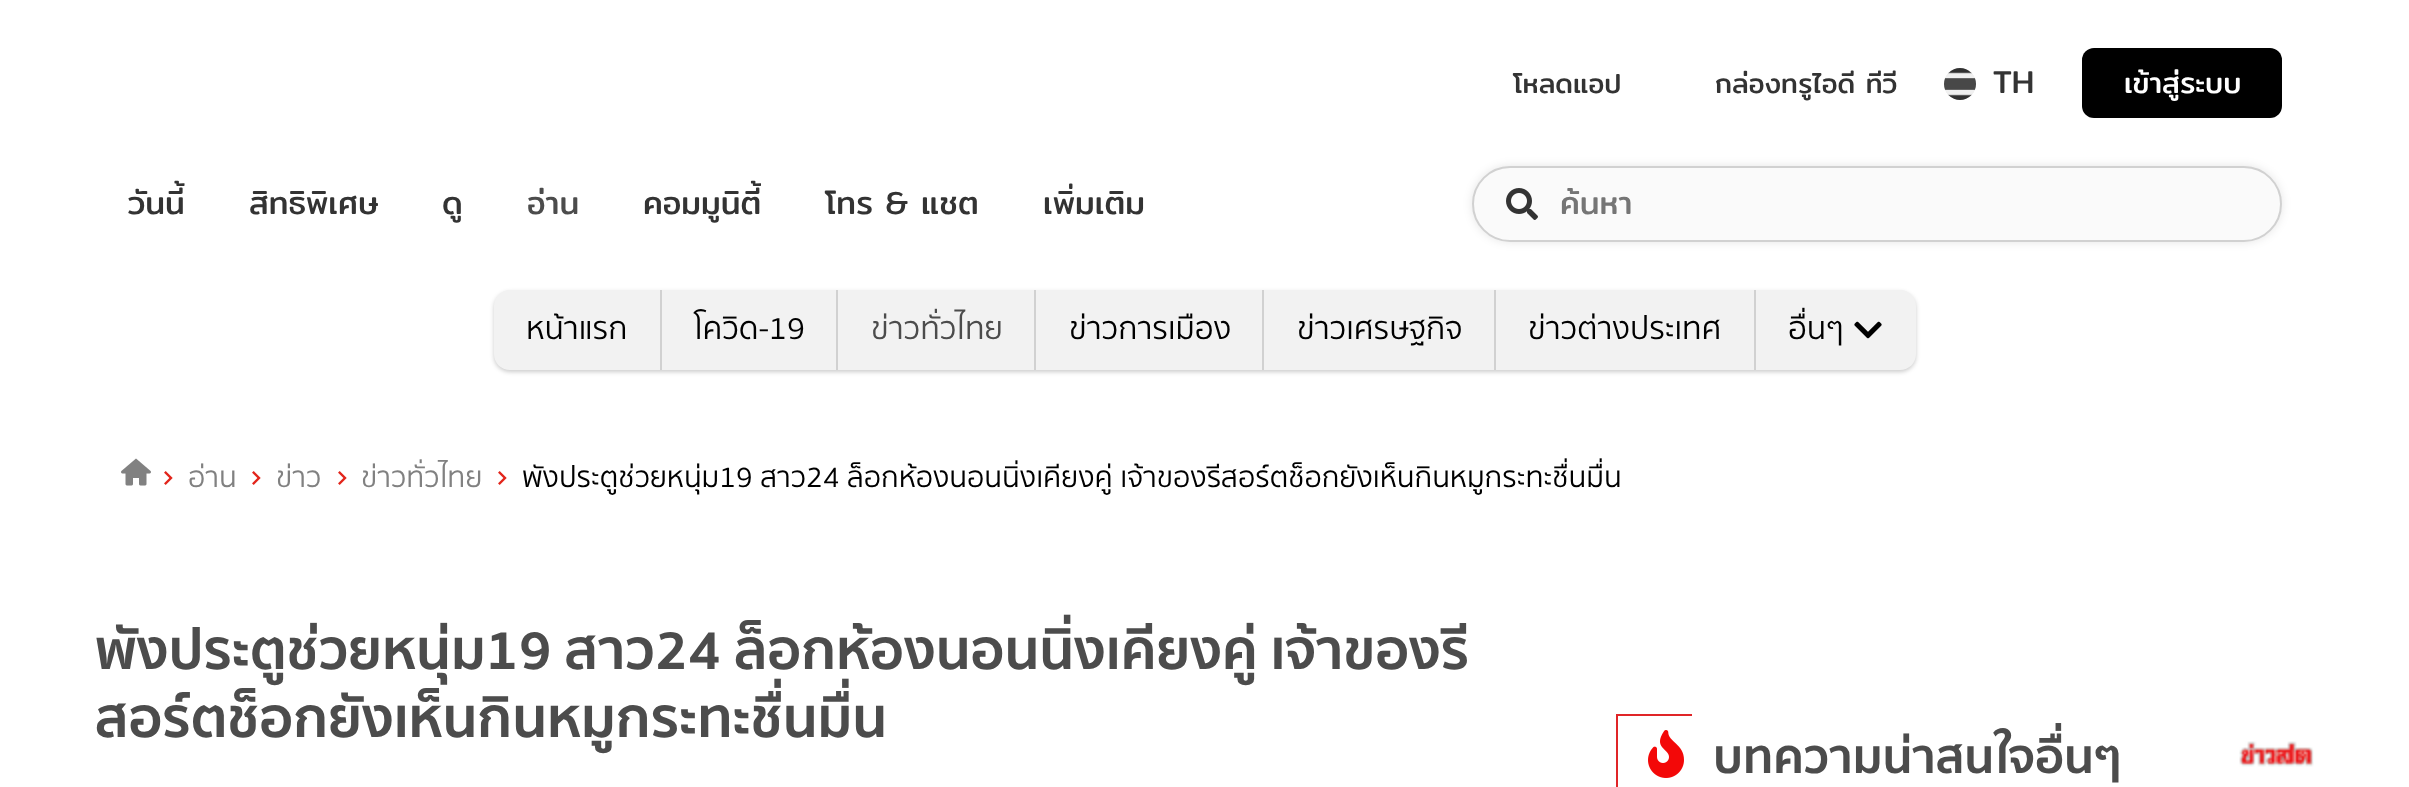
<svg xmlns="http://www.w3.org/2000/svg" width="2409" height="787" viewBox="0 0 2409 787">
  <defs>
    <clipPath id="clip1"><rect x="1560" y="178" width="618" height="50"/></clipPath>
  </defs>
  <rect width="100%" height="100%" fill="rgb(255,255,255)"/>
  <g font-family="Mitr" font-size="27.25" fill="rgb(51,51,51)">
    <text x="1513" y="93">โหลดแอป</text>
    <text x="1715" y="93">กล่องทรูไอดี ทีวี</text>
  </g>
  <circle cx="1960" cy="84" r="16" fill="rgb(239,239,239)"/>
  <image x="1944" y="68" width="32" height="32" href="pic1.png"/>
  <text x="1993" y="93" font-family="Mitr" font-size="32" fill="rgb(51,51,51)">TH</text>
  <rect x="2082" y="48" width="200" height="70" rx="12" fill="rgb(0,0,0)"/>
  <text x="2124" y="93" font-family="Mitr" font-size="29" fill="rgb(255,255,255)">เข้าสู่ระบบ</text>
  <g font-family="Mitr" font-size="32" fill="rgb(51,51,51)">
    <text x="128" y="214">วันนี้</text>
    <text x="249" y="214">สิทธิพิเศษ</text>
    <text x="442" y="214">ดู</text>
  </g>
  <text x="527" y="214" font-family="Mitr" font-size="32" fill="rgb(76,76,76)">อ่าน</text>
  <g font-family="Mitr" font-size="32" fill="rgb(51,51,51)">
    <text x="643" y="214">คอมมูนิตี้</text>
    <text x="825" y="214">โทร &amp; แชต</text>
    <text x="1043" y="214">เพิ่มเติม</text>
  </g>
  <rect x="1472" y="166" width="810" height="76" rx="38" fill="rgba(0,0,0,0.1)" filter="blur(5px)"/>
  <rect x="1473" y="167" width="808" height="74" rx="37" fill="rgb(250,250,250)" stroke="rgb(209,209,209)" stroke-width="2"/>
  <image x="1506" y="188" width="32" height="32" href="pic2.png"/>
  <g clip-path="url(#clip1)">
    <text x="1560" y="214" font-family="Mitr" font-size="32" fill="rgb(117,117,117)">ค้นหา</text>
  </g>
  <rect x="494" y="292" width="1422" height="80" rx="16" fill="rgba(0,0,0,0.2)" filter="blur(2px)"/>
  <path d="M510 290H660V370H510C501 370 494 363 494 354V306C494 297 501 290 510 290Z" fill="rgb(242,242,242)"/>
  <text x="526" y="339" font-family="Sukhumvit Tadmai" font-size="32" fill="rgb(0,0,0)">หน้าแรก</text>
  <rect x="662" y="291" width="174" height="79" fill="rgb(242,242,242)"/>
  <rect x="660" y="290" width="2" height="80" fill="rgb(209,209,209)"/>
  <text x="694" y="339" font-family="Sukhumvit Tadmai" font-size="32" fill="rgb(0,0,0)">โควิด-19</text>
  <rect x="838" y="291" width="196" height="79" fill="rgb(242,242,242)"/>
  <rect x="836" y="290" width="2" height="80" fill="rgb(209,209,209)"/>
  <text x="871" y="339" font-family="Sukhumvit Tadmai" font-size="32" fill="rgb(76,76,76)">ข่าวทั่วไทย</text>
  <rect x="1036" y="291" width="226" height="79" fill="rgb(242,242,242)"/>
  <rect x="1034" y="290" width="2" height="80" fill="rgb(209,209,209)"/>
  <text x="1069" y="339" font-family="Sukhumvit Tadmai" font-size="32" fill="rgb(0,0,0)">ข่าวการเมือง</text>
  <rect x="1264" y="291" width="230" height="79" fill="rgb(242,242,242)"/>
  <rect x="1262" y="290" width="2" height="80" fill="rgb(209,209,209)"/>
  <text x="1297" y="339" font-family="Sukhumvit Tadmai" font-size="32" fill="rgb(0,0,0)">ข่าวเศรษฐกิจ</text>
  <rect x="1496" y="291" width="258" height="79" fill="rgb(242,242,242)"/>
  <rect x="1494" y="290" width="2" height="80" fill="rgb(209,209,209)"/>
  <text x="1528" y="339" font-family="Sukhumvit Tadmai" font-size="32" fill="rgb(0,0,0)">ข่าวต่างประเทศ</text>
  <path d="M1754 290H1900C1909 290 1916 297 1916 306V354C1916 363 1909 370 1900 370H1754Z" fill="rgb(242,242,242)"/>
  <rect x="1754" y="290" width="2" height="80" fill="rgb(209,209,209)"/>
  <text x="1788" y="339" font-family="Sukhumvit Tadmai" font-size="32" fill="rgb(0,0,0)">อื่นๆ</text>
  <image x="1854" y="321" width="28" height="18" href="pic3.png"/>
  <image x="121" y="458" width="30" height="28" href="pic4.png"/>
  <image x="164" y="471" width="9" height="14" href="pic5.png"/>
  <text x="188" y="487" font-family="Sukhumvit Tadmai" font-size="29.45" fill="rgb(129,129,129)">อ่าน</text>
  <image x="252" y="471" width="9" height="14" href="pic5.png"/>
  <text x="276" y="487" font-family="Sukhumvit Tadmai" font-size="29.45" fill="rgb(129,129,129)">ข่าว</text>
  <image x="338" y="471" width="9" height="14" href="pic5.png"/>
  <text x="361" y="487" font-family="Sukhumvit Tadmai" font-size="29.45" fill="rgb(129,129,129)">ข่าวทั่วไทย</text>
  <image x="498" y="471" width="9" height="14" href="pic5.png"/>
  <text x="522" y="487" font-family="Sukhumvit Tadmai" font-size="29.45" fill="rgb(0,0,0)">พังประตูช่วยหนุ่ม19 สาว24 ล็อกห้องนอนนิ่งเคียงคู่ เจ้าของรีสอร์ตช็อกยังเห็นกินหมูกระทะชื่นมื่น</text>
  <g font-family="Sukhumvit Tadmai" font-size="56" font-weight="bold" fill="rgb(76,76,76)">
    <text>
      <tspan x="95" y="669">พังประตูช่วยหนุ่ม19 สาว24 ล็อกห้องนอนนิ่งเคียงคู่ เจ้าของรี</tspan>
      <tspan x="95" y="737">สอร์ตช็อกยังเห็นกินหมูกระทะชื่นมื่น</tspan>
    </text>
  </g>
  <rect x="1616" y="714" width="76" height="2" fill="rgb(224,37,40)"/>
  <rect x="1616" y="714" width="2" height="73" fill="rgb(224,37,40)"/>
  <image x="1648" y="730" width="36" height="48" href="pic6.png"/>
  <text x="1713" y="773" font-family="Sukhumvit Tadmai" font-size="48" font-weight="bold" fill="rgb(76,76,76)">บทความน่าสนใจอื่นๆ</text>
  <image x="2239" y="741" width="75" height="26" href="pic7.png"/>
</svg>
